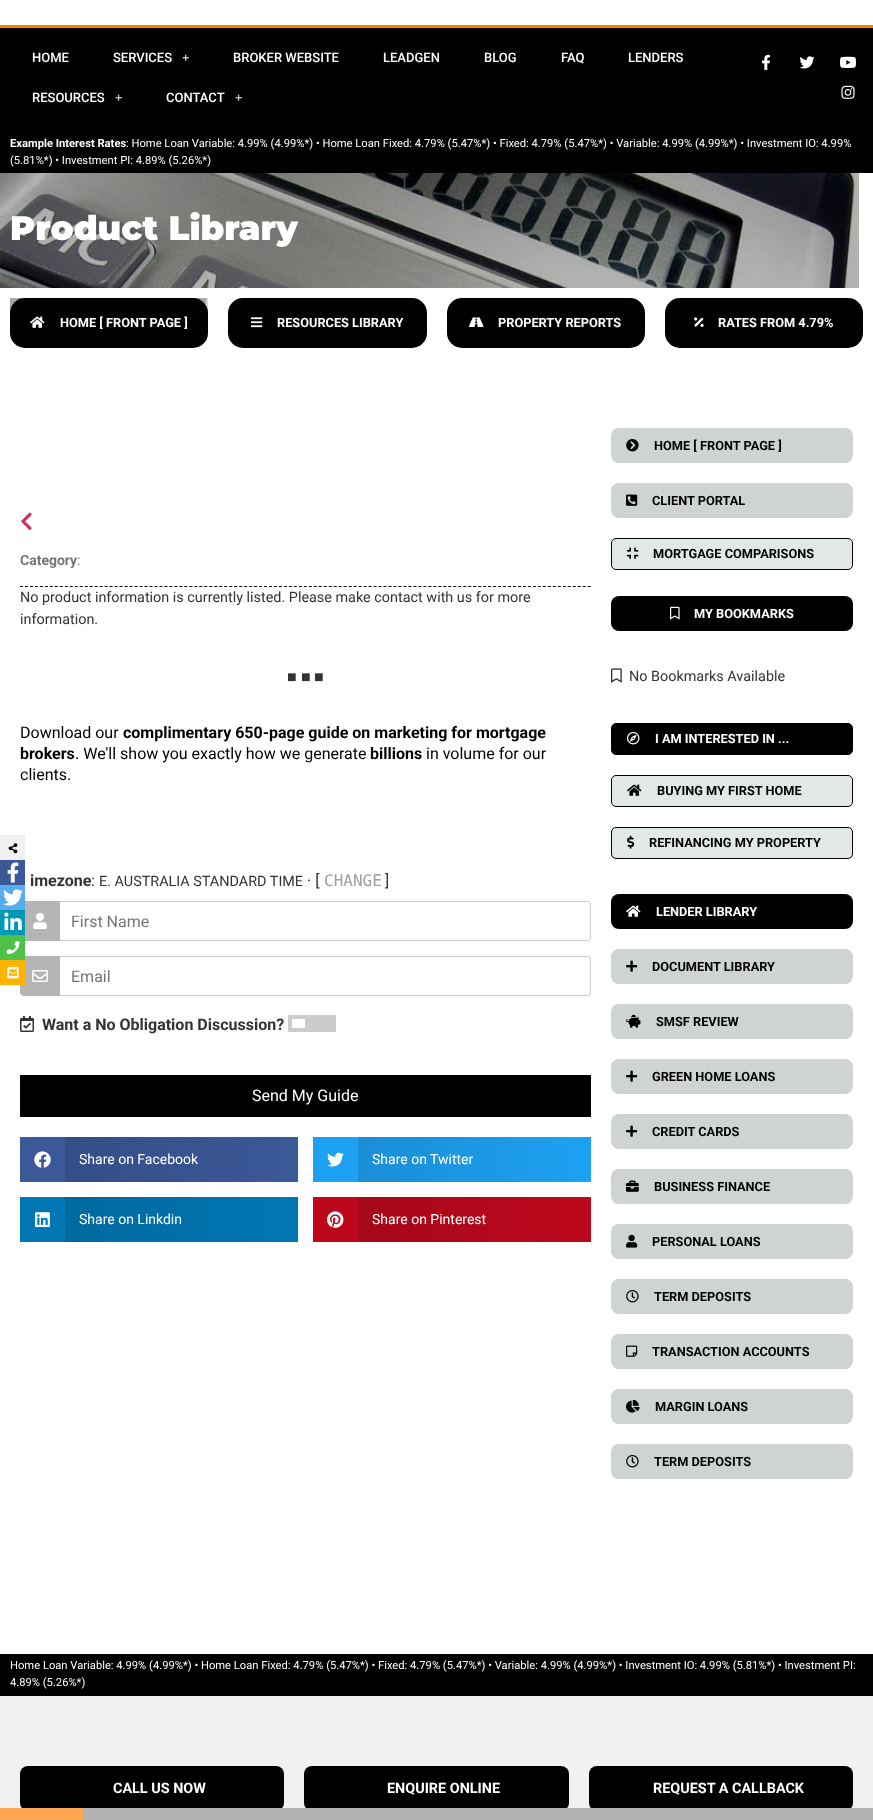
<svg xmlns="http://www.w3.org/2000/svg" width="873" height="1820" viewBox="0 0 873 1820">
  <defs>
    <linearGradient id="g1" gradientUnits="userSpaceOnUse" x1="65" y1="1160" x2="298" y2="1160"><stop offset="0" stop-color="rgb(52,78,134)"/><stop offset="1" stop-color="rgb(59,89,152)"/></linearGradient>
    <linearGradient id="g2" gradientUnits="userSpaceOnUse" x1="358" y1="1160" x2="591" y2="1160"><stop offset="0" stop-color="rgb(26,142,213)"/><stop offset="1" stop-color="rgb(29,161,242)"/></linearGradient>
    <linearGradient id="g3" gradientUnits="userSpaceOnUse" x1="65" y1="1220" x2="298" y2="1220"><stop offset="0" stop-color="rgb(0,105,159)"/><stop offset="1" stop-color="rgb(0,119,181)"/></linearGradient>
    <linearGradient id="g4" gradientUnits="userSpaceOnUse" x1="358" y1="1220" x2="591" y2="1220"><stop offset="0" stop-color="rgb(166,7,25)"/><stop offset="1" stop-color="rgb(189,8,28)"/></linearGradient>
  </defs>
  <rect width="100%" height="100%" fill="rgb(255,255,255)"/>
  <rect x="0" y="28" width="873" height="145" fill="rgb(0,0,0)"/>
  <rect x="0" y="25" width="873" height="3" fill="rgb(255,128,0)"/>
  <g font-family="Roboto" font-size="13" font-weight="500" fill="rgb(255,255,255)">
    <text x="32" y="62">HOME</text>
    <text x="113" y="62">SERVICES</text>
  </g>
  <text x="182" y="62" font-family="Liberation Serif" font-size="13" font-weight="bold" fill="rgb(255,255,255)">+</text>
  <g font-family="Roboto" font-size="13" font-weight="500" fill="rgb(255,255,255)">
    <text x="233" y="62">BROKER WEBSITE</text>
    <text x="383" y="62">LEADGEN</text>
    <text x="484" y="62">BLOG</text>
    <text x="561" y="62">FAQ</text>
    <text x="628" y="62">LENDERS</text>
    <text x="32" y="102">RESOURCES</text>
  </g>
  <text x="115" y="102" font-family="Liberation Serif" font-size="13" font-weight="bold" fill="rgb(255,255,255)">+</text>
  <text x="166" y="102" font-family="Roboto" font-size="13" font-weight="500" fill="rgb(255,255,255)">CONTACT</text>
  <text x="235" y="102" font-family="Liberation Serif" font-size="13" font-weight="bold" fill="rgb(255,255,255)">+</text>
  <image x="762" y="54" width="8" height="16" href="pic1.png"/>
  <image x="799" y="56" width="16" height="13" href="pic2.png"/>
  <image x="840" y="56" width="16" height="12" href="pic3.png"/>
  <image x="841" y="85" width="14" height="14" href="pic4.png"/>
  <text x="10" y="147" font-family="Roboto" font-size="11.2" font-weight="bold" fill="rgb(255,255,255)">Example Interest Rates</text>
  <g font-family="Roboto" font-size="11.2" fill="rgb(255,255,255)">
    <text x="126" y="147">: Home Loan Variable: 4.99% (4.99%*) • Home Loan Fixed: 4.79% (5.47%*) • Fixed: 4.79% (5.47%*) • Variable: 4.99% (4.99%*) • Investment IO: 4.99%</text>
    <text x="10" y="164">(5.81%*) • Investment PI: 4.89% (5.26%*)</text>
  </g>
  <image x="0" y="173" width="859" height="140" href="pic5.png"/>
  <text x="10" y="240" font-family="Montserrat" font-size="34" font-weight="900" fill="rgb(255,255,255)">Product Library</text>
  <rect x="5" y="293" width="208" height="60" fill="none" stroke="rgb(255,255,255)" stroke-width="10"/>
  <rect x="10" y="298" width="198" height="15" fill="rgba(255,255,255,0.5)"/>
  <rect x="12.5" y="300.5" width="193" height="45" rx="12.5" fill="rgb(0,0,0)" stroke="rgb(0,0,0)" stroke-width="5"/>
  <image x="30" y="316" width="15" height="12" href="pic6.png"/>
  <text x="60" y="327" font-family="Roboto" font-size="12.75" font-weight="bold" fill="rgb(255,255,255)">HOME [ FRONT PAGE ]</text>
  <rect x="218" y="288" width="641" height="25" fill="rgb(255,255,255)"/>
  <rect x="230.5" y="300.5" width="194" height="45" rx="12.5" fill="rgb(0,0,0)" stroke="rgb(0,0,0)" stroke-width="5"/>
  <image x="251" y="317" width="12" height="11" href="pic7.png"/>
  <text x="277" y="327" font-family="Roboto" font-size="12.75" font-weight="bold" fill="rgb(255,255,255)">RESOURCES LIBRARY</text>
  <rect x="449.5" y="300.5" width="193" height="45" rx="12.5" fill="rgb(0,0,0)" stroke="rgb(0,0,0)" stroke-width="5"/>
  <image x="469" y="317" width="15" height="10" href="pic8.png"/>
  <text x="498" y="327" font-family="Roboto" font-size="12.75" font-weight="bold" fill="rgb(255,255,255)">PROPERTY REPORTS</text>
  <rect x="667.5" y="300.5" width="193" height="45" rx="12.5" fill="rgb(0,0,0)" stroke="rgb(0,0,0)" stroke-width="5"/>
  <image x="694" y="317" width="10" height="10" href="pic9.png"/>
  <text x="718" y="327" font-family="Roboto" font-size="12.75" font-weight="bold" fill="rgb(255,255,255)">RATES FROM 4.79%</text>
  <image x="21" y="512" width="11" height="18" href="pic10.png"/>
  <text x="20" y="565" font-family="Roboto" font-size="14" font-weight="bold" fill="rgb(117,117,117)">Category</text>
  <text x="77" y="565" font-family="Roboto" font-size="14" fill="rgb(117,117,117)">:</text>
  <path d="M20 586.5H591" fill="none" stroke="rgb(0,0,0)" stroke-dasharray="3 1.98"/>
  <g font-family="Roboto" font-size="14.4" fill="rgb(51,51,51)">
    <text>
      <tspan x="20" y="602">No product information is currently listed. Please make contact with us for more</tspan>
      <tspan x="20" y="624">information.</tspan>
    </text>
  </g>
  <g font-family="Liberation Sans" font-size="16" fill="rgb(51,51,51)">
    <text x="287" y="682">■</text>
    <text x="301" y="682">■</text>
    <text x="314" y="682">■</text>
  </g>
  <text x="20" y="738" font-family="Roboto" font-size="16" fill="rgb(0,0,0)">Download our</text>
  <g font-family="Roboto" font-size="16" font-weight="bold" fill="rgb(0,0,0)">
    <text x="123" y="738">complimentary 650-page guide on marketing for mortgage</text>
    <text x="20" y="759">brokers</text>
  </g>
  <text x="75" y="759" font-family="Roboto" font-size="16" fill="rgb(0,0,0)">. We'll show you exactly how we generate</text>
  <text x="370" y="759" font-family="Roboto" font-size="16" font-weight="bold" fill="rgb(0,0,0)">billions</text>
  <g font-family="Roboto" font-size="16" fill="rgb(0,0,0)">
    <text x="426" y="759">in volume for our</text>
    <text x="20" y="780">clients.</text>
  </g>
  <text x="30" y="886" font-family="Roboto" font-size="16" font-weight="bold" fill="rgb(51,51,51)">imezone</text>
  <text x="91" y="886" font-family="Roboto" font-size="16" fill="rgb(51,51,51)">:</text>
  <text x="99" y="886" font-family="Roboto" font-size="14.4" fill="rgb(51,51,51)">E. AUSTRALIA STANDARD TIME</text>
  <text x="307" y="886" font-family="Roboto" font-size="16" fill="rgb(51,51,51)">· [</text>
  <text x="324" y="886" font-family="DejaVu Sans Mono" font-size="16" fill="rgb(160,160,160)">CHANGE</text>
  <text x="385" y="886" font-family="Roboto" font-size="16" fill="rgb(51,51,51)">]</text>
  <rect x="20.5" y="901.5" width="570" height="39" rx="2.5" fill="none" stroke="rgb(204,204,204)"/>
  <rect x="25" y="901" width="35" height="40" fill="rgb(181,181,181)"/>
  <image x="33" y="913" width="14" height="16" href="pic11.png"/>
  <text x="71" y="927" font-family="Roboto" font-size="16" fill="rgb(117,117,117)">First Name</text>
  <rect x="20.5" y="956.5" width="570" height="39" rx="2.5" fill="none" stroke="rgb(204,204,204)"/>
  <path d="M25 956H60V996H25C22 996 20 994 20 991V961C20 958 22 956 25 956Z" fill="rgb(181,181,181)"/>
  <image x="32" y="970" width="16" height="12" href="pic12.png"/>
  <text x="71" y="982" font-family="Roboto" font-size="16" fill="rgb(117,117,117)">Email</text>
  <image x="20" y="1016" width="14" height="16" href="pic13.png"/>
  <text x="42" y="1030" font-family="Roboto" font-size="16" font-weight="bold" fill="rgb(51,51,51)">Want a No Obligation Discussion?</text>
  <rect x="288" y="1015" width="48" height="17" fill="rgb(204,204,204)"/>
  <rect x="292" y="1019" width="13" height="9" fill="rgb(255,255,255)"/>
  <rect x="20" y="1075" width="571" height="42" fill="rgb(0,0,0)"/>
  <text x="252" y="1101" font-family="Roboto" font-size="16" fill="rgb(255,255,255)">Send My Guide</text>
  <rect x="20" y="1137" width="45" height="45" fill="rgb(59,89,152)"/>
  <image x="34" y="1151" width="17" height="17" href="pic14.png"/>
  <rect x="65" y="1137" width="233" height="45" fill="url(#g1)"/>
  <text x="79" y="1164" font-family="Roboto" font-size="14" fill="rgb(255,255,255)">Share on Facebook</text>
  <rect x="313" y="1137" width="45" height="45" fill="rgb(29,161,242)"/>
  <image x="327" y="1152" width="17" height="15" href="pic15.png"/>
  <rect x="358" y="1137" width="233" height="45" fill="url(#g2)"/>
  <text x="372" y="1164" font-family="Roboto" font-size="14" fill="rgb(255,255,255)">Share on Twitter</text>
  <rect x="20" y="1197" width="45" height="45" fill="rgb(0,119,181)"/>
  <image x="35" y="1212" width="15" height="16" href="pic16.png"/>
  <rect x="65" y="1197" width="233" height="45" fill="url(#g3)"/>
  <text x="79" y="1224" font-family="Roboto" font-size="14" fill="rgb(255,255,255)">Share on Linkdin</text>
  <rect x="313" y="1197" width="45" height="45" fill="rgb(189,8,28)"/>
  <image x="327" y="1211" width="17" height="17" href="pic17.png"/>
  <rect x="358" y="1197" width="233" height="45" fill="url(#g4)"/>
  <text x="372" y="1224" font-family="Roboto" font-size="14" fill="rgb(255,255,255)">Share on Pinterest</text>
  <rect x="611" y="428" width="242" height="35" rx="8" fill="rgb(208,211,212)"/>
  <image x="626" y="439" width="13" height="13" href="pic18.png"/>
  <text x="654" y="450" font-family="Roboto" font-size="12.75" font-weight="bold" fill="rgb(0,0,0)">HOME [ FRONT PAGE ]</text>
  <rect x="611" y="483" width="242" height="35" rx="8" fill="rgb(208,211,212)"/>
  <image x="626" y="494" width="12" height="12" href="pic19.png"/>
  <text x="652" y="505" font-family="Roboto" font-size="12.75" font-weight="bold" fill="rgb(0,0,0)">CLIENT PORTAL</text>
  <rect x="611.5" y="538.5" width="241" height="31" rx="4.5" fill="rgb(226,231,231)" stroke="rgb(0,0,0)"/>
  <image x="627" y="547" width="12" height="12" href="pic20.png"/>
  <text x="653" y="558" font-family="Roboto" font-size="12.75" font-weight="bold" fill="rgb(0,0,0)">MORTGAGE COMPARISONS</text>
  <rect x="611" y="596" width="242" height="35" rx="8" fill="rgb(0,0,0)"/>
  <image x="670" y="606" width="10" height="14" href="pic21.png"/>
  <text x="694" y="618" font-family="Roboto" font-size="12.75" font-weight="bold" fill="rgb(255,255,255)">MY BOOKMARKS</text>
  <image x="611" y="668" width="11" height="15" href="pic22.png"/>
  <text x="629" y="681" font-family="Roboto" font-size="14.4" fill="rgb(51,51,51)">No Bookmarks Available</text>
  <rect x="611.5" y="723.5" width="241" height="31" rx="4.5" fill="rgb(0,0,0)" stroke="rgb(0,0,0)"/>
  <image x="627" y="732" width="13" height="13" href="pic23.png"/>
  <text x="655" y="743" font-family="Roboto" font-size="12.75" font-weight="bold" fill="rgb(255,255,255)">I AM INTERESTED IN ...</text>
  <rect x="611.5" y="775.5" width="241" height="31" rx="4.5" fill="rgb(226,231,231)" stroke="rgb(0,0,0)"/>
  <image x="627" y="784" width="15" height="12" href="pic24.png"/>
  <text x="657" y="795" font-family="Roboto" font-size="12.75" font-weight="bold" fill="rgb(0,0,0)">BUYING MY FIRST HOME</text>
  <rect x="611.5" y="827.5" width="241" height="31" rx="4.5" fill="rgb(226,231,231)" stroke="rgb(0,0,0)"/>
  <image x="627" y="835" width="8" height="14" href="pic25.png"/>
  <text x="649" y="847" font-family="Roboto" font-size="12.75" font-weight="bold" fill="rgb(0,0,0)">REFINANCING MY PROPERTY</text>
  <rect x="611" y="894" width="242" height="35" rx="8" fill="rgb(0,0,0)"/>
  <image x="626" y="905" width="15" height="12" href="pic6.png"/>
  <text x="656" y="916" font-family="Roboto" font-size="12.75" font-weight="bold" fill="rgb(255,255,255)">LENDER LIBRARY</text>
  <rect x="611" y="949" width="242" height="35" rx="8" fill="rgb(208,211,212)"/>
  <image x="626" y="960" width="12" height="12" href="pic26.png"/>
  <text x="652" y="971" font-family="Roboto" font-size="12.75" font-weight="bold" fill="rgb(0,0,0)">DOCUMENT LIBRARY</text>
  <rect x="611" y="1004" width="242" height="35" rx="8" fill="rgb(208,211,212)"/>
  <image x="626" y="1014" width="15" height="14" href="pic27.png"/>
  <text x="656" y="1026" font-family="Roboto" font-size="12.75" font-weight="bold" fill="rgb(0,0,0)">SMSF REVIEW</text>
  <rect x="611" y="1059" width="242" height="35" rx="8" fill="rgb(208,211,212)"/>
  <image x="626" y="1070" width="12" height="12" href="pic26.png"/>
  <text x="652" y="1081" font-family="Roboto" font-size="12.75" font-weight="bold" fill="rgb(0,0,0)">GREEN HOME LOANS</text>
  <rect x="611" y="1114" width="242" height="35" rx="8" fill="rgb(208,211,212)"/>
  <image x="626" y="1125" width="12" height="12" href="pic26.png"/>
  <text x="652" y="1136" font-family="Roboto" font-size="12.75" font-weight="bold" fill="rgb(0,0,0)">CREDIT CARDS</text>
  <rect x="611" y="1169" width="242" height="35" rx="8" fill="rgb(208,211,212)"/>
  <image x="626" y="1180" width="13" height="12" href="pic28.png"/>
  <text x="654" y="1191" font-family="Roboto" font-size="12.75" font-weight="bold" fill="rgb(0,0,0)">BUSINESS FINANCE</text>
  <rect x="611" y="1224" width="242" height="35" rx="8" fill="rgb(208,211,212)"/>
  <image x="626" y="1234" width="12" height="14" href="pic29.png"/>
  <text x="652" y="1246" font-family="Roboto" font-size="12.75" font-weight="bold" fill="rgb(0,0,0)">PERSONAL LOANS</text>
  <rect x="611" y="1279" width="242" height="35" rx="8" fill="rgb(208,211,212)"/>
  <image x="626" y="1290" width="13" height="13" href="pic30.png"/>
  <text x="654" y="1301" font-family="Roboto" font-size="12.75" font-weight="bold" fill="rgb(0,0,0)">TERM DEPOSITS</text>
  <rect x="611" y="1334" width="242" height="35" rx="8" fill="rgb(208,211,212)"/>
  <image x="626" y="1345" width="12" height="12" href="pic31.png"/>
  <text x="652" y="1356" font-family="Roboto" font-size="12.75" font-weight="bold" fill="rgb(0,0,0)">TRANSACTION ACCOUNTS</text>
  <rect x="611" y="1389" width="242" height="35" rx="8" fill="rgb(208,211,212)"/>
  <image x="626" y="1399" width="14" height="14" href="pic32.png"/>
  <text x="655" y="1411" font-family="Roboto" font-size="12.75" font-weight="bold" fill="rgb(0,0,0)">MARGIN LOANS</text>
  <rect x="611" y="1444" width="242" height="35" rx="8" fill="rgb(208,211,212)"/>
  <image x="626" y="1455" width="13" height="13" href="pic30.png"/>
  <text x="654" y="1466" font-family="Roboto" font-size="12.75" font-weight="bold" fill="rgb(0,0,0)">TERM DEPOSITS</text>
  <rect x="0" y="835" width="25" height="25" fill="rgb(240,240,240)"/>
  <image x="8" y="843" width="10" height="11" href="pic33.png"/>
  <rect x="0" y="860" width="25" height="25" fill="rgb(59,89,152)"/>
  <image x="7" y="862" width="12" height="21" href="pic34.png"/>
  <rect x="0" y="885" width="25" height="25" fill="rgb(85,172,238)"/>
  <image x="3" y="889" width="20" height="17" href="pic35.png"/>
  <rect x="0" y="910" width="25" height="25" fill="rgb(0,152,178)"/>
  <image x="4" y="912" width="18" height="18" href="pic36.png"/>
  <rect x="0" y="935" width="25" height="25" fill="rgb(77,194,71)"/>
  <image x="6" y="941" width="14" height="14" href="pic37.png"/>
  <rect x="0" y="960" width="25" height="25" fill="rgb(255,179,1)"/>
  <image x="7" y="966" width="12" height="13" href="pic38.png"/>
  <rect x="0" y="1654" width="873" height="42" fill="rgb(0,0,0)"/>
  <g font-family="Roboto" font-size="11.2" fill="rgb(255,255,255)">
    <text>
      <tspan x="10" y="1669">Home Loan Variable: 4.99% (4.99%*) • Home Loan Fixed: 4.79% (5.47%*) • Fixed: 4.79% (5.47%*) • Variable: 4.99% (4.99%*) • Investment IO: 4.99% (5.81%*) • Investment PI:</tspan>
      <tspan x="10" y="1686">4.89% (5.26%*)</tspan>
    </text>
  </g>
  <rect x="0" y="1696" width="873" height="112" fill="rgb(241,241,241)"/>
  <rect x="20" y="1766" width="264" height="45" rx="8" fill="rgb(0,0,0)"/>
  <text x="113" y="1793" font-family="Roboto" font-size="14.4" font-weight="bold" fill="rgb(255,255,255)">CALL US NOW</text>
  <rect x="304" y="1766" width="265" height="45" rx="8" fill="rgb(0,0,0)"/>
  <text x="387" y="1793" font-family="Roboto" font-size="14.4" font-weight="bold" fill="rgb(255,255,255)">ENQUIRE ONLINE</text>
  <rect x="589" y="1766" width="264" height="45" rx="8" fill="rgb(0,0,0)"/>
  <text x="653" y="1793" font-family="Roboto" font-size="14.4" font-weight="bold" fill="rgb(255,255,255)">REQUEST A CALLBACK</text>
  <rect x="83" y="1808" width="790" height="12" fill="rgb(177,177,177)"/>
  <rect x="0" y="1808" width="83" height="12" fill="rgb(255,166,81)"/>
</svg>
